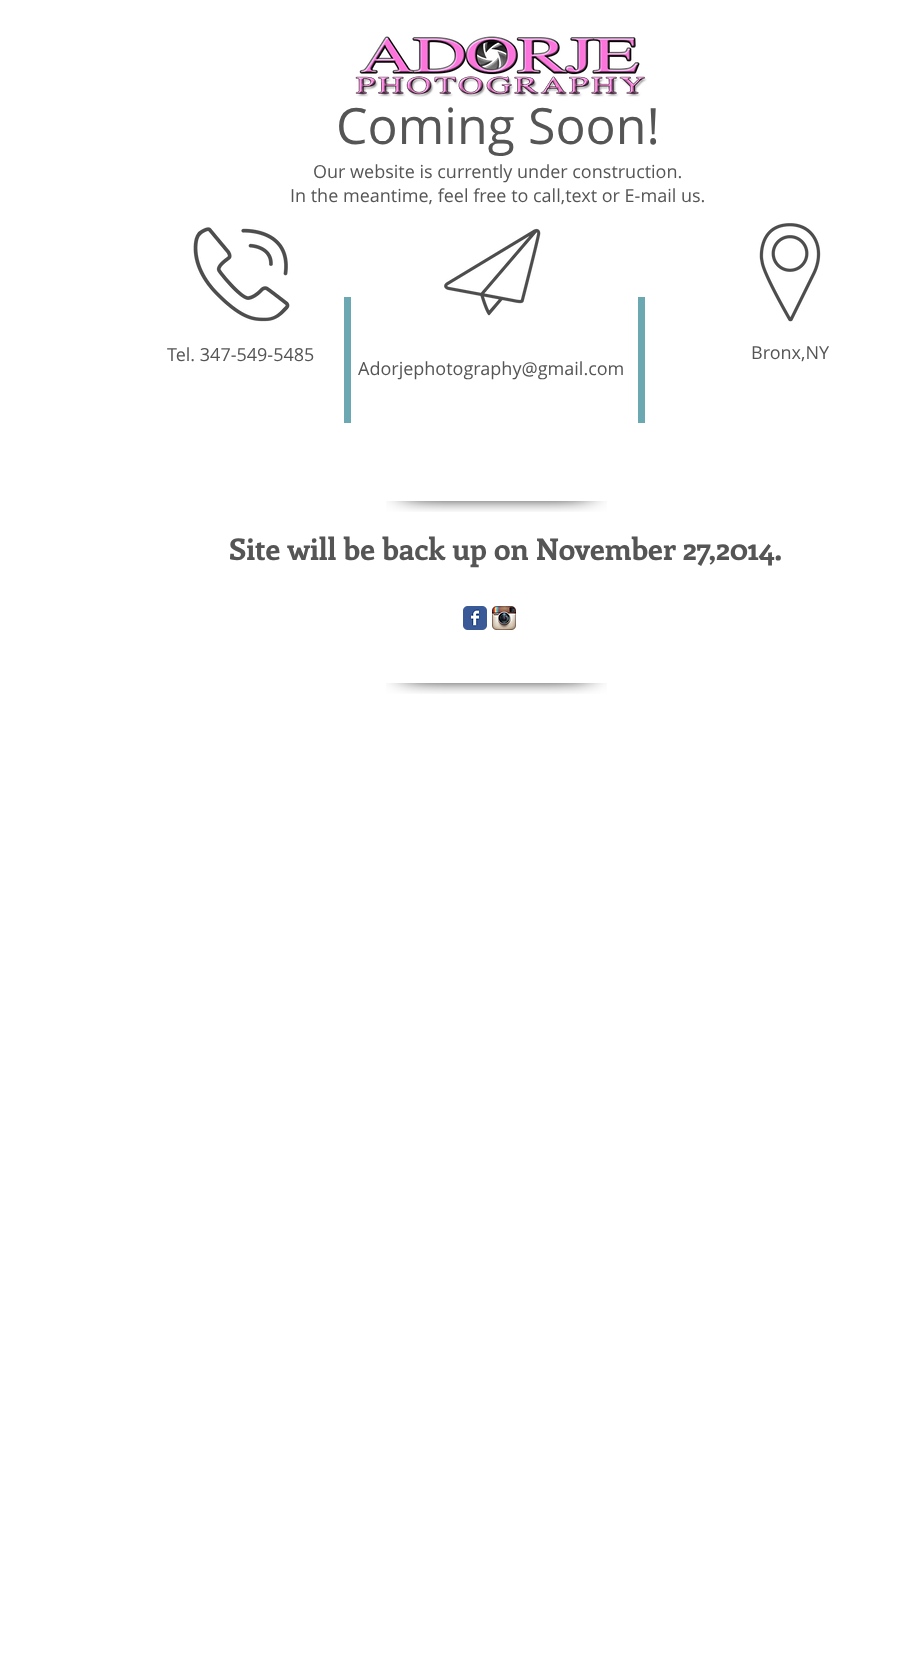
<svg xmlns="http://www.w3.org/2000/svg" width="906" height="1669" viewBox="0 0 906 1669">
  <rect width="100%" height="100%" fill="rgb(255,255,255)"/>
  <image x="355" y="36" width="292" height="61" href="pic1.png"/>
  <text x="336" y="144" font-family="Open Sans" font-size="50" fill="rgb(85,85,85)">Coming Soon!</text>
  <g font-family="Open Sans" font-size="18" fill="rgb(85,85,85)">
    <text x="313" y="178">Our website is currently under construction.</text>
    <text x="290" y="202">In the meantime, feel free to call,text or E-mail us.</text>
  </g>
  <image x="193" y="227" width="97" height="95" href="pic2.png"/>
  <image x="444" y="228" width="97" height="88" href="pic3.png"/>
  <image x="759" y="223" width="62" height="99" href="pic4.png"/>
  <text x="167" y="361" font-family="Open Sans" font-size="18" fill="rgb(85,85,85)">Tel. 347-549-5485</text>
  <rect x="344" y="297" width="7" height="126" fill="rgb(107,168,178)"/>
  <rect x="638" y="297" width="7" height="126" fill="rgb(107,168,178)"/>
  <g font-family="Open Sans" font-size="18" fill="rgb(85,85,85)">
    <text x="751" y="359">Bronx,NY</text>
    <text x="358" y="375">Adorjephotography@gmail.com</text>
  </g>
  <image x="386" y="501" width="97" height="11" href="pic5.png"/>
  <image x="483" y="501" width="27" height="11" href="pic6.png"/>
  <image x="510" y="501" width="97" height="11" href="pic7.png"/>
  <text x="229" y="560" font-family="Enriqueta" font-size="30" font-weight="bold" fill="rgb(85,85,85)">Site will be back up on November 27,2014.</text>
  <image x="463" y="606" width="24" height="24" href="pic8.png"/>
  <image x="492" y="606" width="24" height="24" href="pic9.png"/>
  <image x="386" y="683" width="97" height="11" href="pic5.png"/>
  <image x="483" y="683" width="27" height="11" href="pic6.png"/>
  <image x="510" y="683" width="97" height="11" href="pic7.png"/>
</svg>
